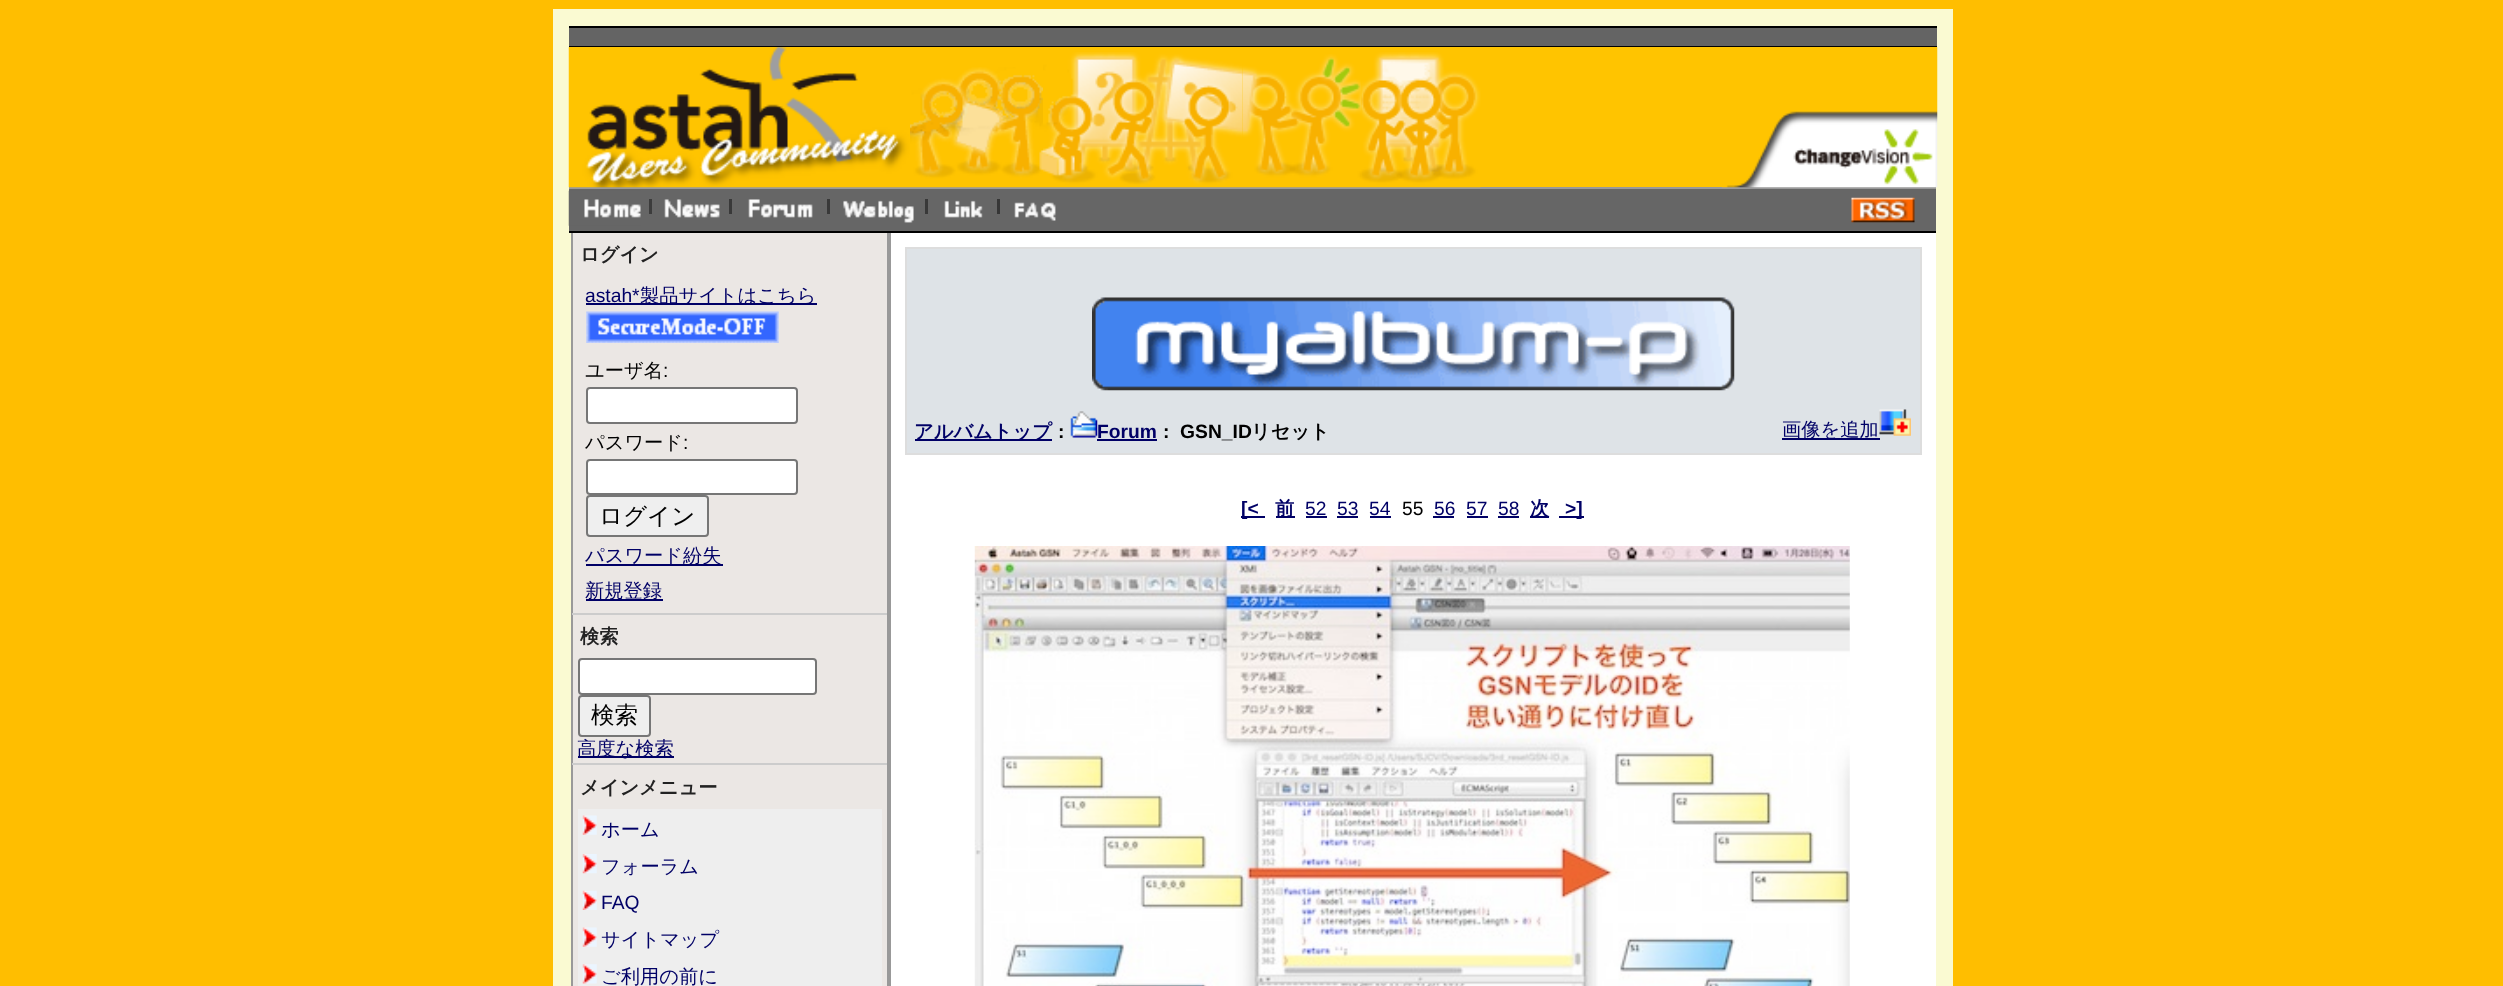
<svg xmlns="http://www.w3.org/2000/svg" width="2503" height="986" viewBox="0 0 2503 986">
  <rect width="100%" height="100%" fill="rgb(255,190,0)"/>
  <rect x="553" y="9" width="1400" height="977" fill="rgb(250,250,210)"/>
  <rect x="569" y="28" width="1368" height="18" fill="rgb(100,100,100)"/>
  <rect x="569" y="26" width="1368" height="2" fill="rgb(0,0,0)"/>
  <rect x="569" y="46" width="1368" height="1" fill="rgb(0,0,0)"/>
  <rect x="569" y="47" width="1368" height="140" fill="rgb(255,196,0)"/>
  <rect x="569" y="187" width="1367" height="2" fill="rgb(153,153,153)"/>
  <image x="568" y="47" width="342" height="141" href="pic1.png"/>
  <image x="910" y="67" width="133" height="121" href="pic2.png"/>
  <image x="1043" y="52" width="200" height="136" href="pic3.png"/>
  <image x="1242" y="54" width="120" height="134" href="pic4.png"/>
  <image x="1361" y="52" width="120" height="136" href="pic5.png"/>
  <image x="1722" y="47" width="216" height="141" href="pic6.png"/>
  <rect x="569" y="189" width="1367" height="42" fill="rgb(102,102,102)"/>
  <rect x="569" y="231" width="1367" height="2" fill="rgb(0,0,0)"/>
  <image x="568" y="190" width="73" height="36" href="pic7.png"/>
  <rect x="649" y="199" width="3" height="15" fill="rgb(60,60,60)"/>
  <image x="664" y="199" width="56" height="19" href="pic8.png"/>
  <rect x="729" y="199" width="3" height="15" fill="rgb(57,57,57)"/>
  <image x="748" y="199" width="65" height="19" href="pic9.png"/>
  <rect x="827" y="199" width="3" height="15" fill="rgb(57,57,57)"/>
  <image x="843" y="200" width="71" height="23" href="pic10.png"/>
  <rect x="925" y="199" width="3" height="15" fill="rgb(57,57,57)"/>
  <image x="944" y="200" width="39" height="18" href="pic11.png"/>
  <rect x="997" y="199" width="3" height="15" fill="rgb(54,54,54)"/>
  <image x="1014" y="202" width="42" height="19" href="pic12.png"/>
  <image x="1851" y="197" width="64" height="26" href="pic13.png"/>
  <rect x="573" y="233" width="314" height="753" fill="rgb(235,231,228)"/>
  <rect x="887" y="233" width="4" height="753" fill="rgb(153,153,153)"/>
  <rect x="571" y="233" width="2" height="753" fill="rgb(153,153,153)"/>
  <text x="580" y="261" font-family="WenQuanYi Zen Hei" font-size="19.25" font-weight="bold" fill="rgb(34,34,34)">ログイン</text>
  <rect x="572" y="613" width="315" height="2" fill="rgb(204,204,204)"/>
  <text x="585" y="302" font-family="Liberation Sans" font-size="19.25" fill="rgb(0,0,102)">astah*</text>
  <rect x="586" y="303" width="231" height="2" fill="rgb(0,0,102)"/>
  <text x="640" y="302" font-family="WenQuanYi Zen Hei" font-size="19.25" font-weight="500" fill="rgb(0,0,102)">製品サイトはこちら</text>
  <image x="586" y="311" width="193" height="32" href="pic14.png"/>
  <text x="585" y="377" font-family="WenQuanYi Zen Hei" font-size="19.25" font-weight="500" fill="rgb(0,0,0)">ユーザ名</text>
  <text x="663" y="377" font-family="Liberation Sans" font-size="19.25" fill="rgb(0,0,0)">:</text>
  <rect x="587" y="388" width="210" height="35" rx="3" fill="rgb(255,255,255)" stroke="rgb(118,118,118)" stroke-width="2"/>
  <text x="585" y="449" font-family="WenQuanYi Zen Hei" font-size="19.25" font-weight="500" fill="rgb(0,0,0)">パスワード</text>
  <text x="683" y="449" font-family="Liberation Sans" font-size="19.25" fill="rgb(0,0,0)">:</text>
  <rect x="587" y="460" width="210" height="34" rx="3" fill="rgb(255,255,255)" stroke="rgb(118,118,118)" stroke-width="2"/>
  <rect x="587" y="496" width="121" height="40" rx="3" fill="rgb(239,239,239)" stroke="rgb(118,118,118)" stroke-width="2"/>
  <text x="599" y="524" font-family="WenQuanYi Zen Hei" font-size="23.5" font-weight="500" fill="rgb(0,0,0)">ログイン</text>
  <rect x="586" y="564" width="137" height="2" fill="rgb(0,0,102)"/>
  <text x="585" y="562" font-family="WenQuanYi Zen Hei" font-size="19.25" font-weight="500" fill="rgb(0,0,102)">パスワード紛失</text>
  <rect x="586" y="599" width="77" height="2" fill="rgb(0,0,102)"/>
  <text x="585" y="597" font-family="WenQuanYi Zen Hei" font-size="19.25" font-weight="500" fill="rgb(0,0,102)">新規登録</text>
  <text x="580" y="643" font-family="WenQuanYi Zen Hei" font-size="19.25" font-weight="bold" fill="rgb(34,34,34)">検索</text>
  <rect x="572" y="763" width="315" height="2" fill="rgb(204,204,204)"/>
  <rect x="579" y="659" width="237" height="35" rx="3" fill="rgb(255,255,255)" stroke="rgb(118,118,118)" stroke-width="2"/>
  <rect x="579" y="696" width="71" height="40" rx="3" fill="rgb(239,239,239)" stroke="rgb(118,118,118)" stroke-width="2"/>
  <text x="591" y="723" font-family="WenQuanYi Zen Hei" font-size="23.5" font-weight="500" fill="rgb(0,0,0)">検索</text>
  <rect x="578" y="756" width="96" height="2" fill="rgb(0,0,102)"/>
  <text x="577" y="755" font-family="WenQuanYi Zen Hei" font-size="19.25" font-weight="500" fill="rgb(0,0,102)">高度な検索</text>
  <text x="580" y="794" font-family="WenQuanYi Zen Hei" font-size="19.25" font-weight="bold" fill="rgb(34,34,34)">メインメニュー</text>
  <rect x="578" y="809" width="304" height="177" fill="rgb(238,238,238)"/>
  <image x="582" y="815" width="15" height="20" href="pic15.png"/>
  <text x="601" y="836" font-family="WenQuanYi Zen Hei" font-size="19.25" font-weight="500" fill="rgb(0,0,102)">ホーム</text>
  <image x="582" y="854" width="15" height="20" href="pic16.png"/>
  <text x="601" y="873" font-family="WenQuanYi Zen Hei" font-size="19.25" font-weight="500" fill="rgb(0,0,102)">フォーラム</text>
  <image x="582" y="890" width="15" height="20" href="pic17.png"/>
  <text x="601" y="909" font-family="Liberation Sans" font-size="19.25" fill="rgb(0,0,102)">FAQ</text>
  <image x="582" y="927" width="15" height="20" href="pic15.png"/>
  <text x="601" y="946" font-family="WenQuanYi Zen Hei" font-size="19.25" font-weight="500" fill="rgb(0,0,102)">サイトマップ</text>
  <image x="582" y="964" width="15" height="20" href="pic18.png"/>
  <text x="601" y="983" font-family="WenQuanYi Zen Hei" font-size="19.25" font-weight="500" fill="rgb(0,0,102)">ご利用の前に</text>
  <rect x="891" y="233" width="1045" height="753" fill="rgb(255,255,255)"/>
  <rect x="906" y="248" width="1015" height="206" fill="none" stroke="rgb(221,221,221)" stroke-width="2"/>
  <rect x="907" y="249" width="1013" height="204" fill="rgb(222,227,231)"/>
  <image x="1092" y="297" width="643" height="94" href="pic19.png"/>
  <rect x="915" y="439" width="137" height="2" fill="rgb(0,0,102)"/>
  <text x="914" y="438" font-family="WenQuanYi Zen Hei" font-size="19.25" font-weight="bold" fill="rgb(0,0,102)">アルバムトップ</text>
  <text x="1058" y="438" font-family="Liberation Sans" font-size="19.25" font-weight="bold" fill="rgb(0,0,0)">:</text>
  <image x="1070" y="411" width="28" height="27" href="pic20.png"/>
  <text x="1097" y="438" font-family="Liberation Sans" font-size="19.25" font-weight="bold" fill="rgb(0,0,102)">Forum</text>
  <rect x="1097" y="439" width="60" height="2" fill="rgb(0,0,102)"/>
  <text x="1163" y="438" font-family="Liberation Sans" font-size="19.25" font-weight="bold" fill="rgb(0,0,0)" xml:space="preserve">:  GSN_ID</text>
  <text x="1251" y="438" font-family="WenQuanYi Zen Hei" font-size="19.25" font-weight="bold" fill="rgb(0,0,0)">リセット</text>
  <rect x="1782" y="438" width="98" height="2" fill="rgb(0,0,102)"/>
  <text x="1782" y="436" font-family="WenQuanYi Zen Hei" font-size="19.25" font-weight="500" fill="rgb(0,0,102)">画像を追加</text>
  <image x="1879" y="409" width="32" height="27" href="pic21.png"/>
  <rect x="1241" y="516" width="24" height="2" fill="rgb(0,0,102)"/>
  <text x="1241" y="515" font-family="Liberation Sans" font-size="19.25" font-weight="bold" fill="rgb(0,0,102)">[&lt;</text>
  <rect x="1276" y="516" width="19" height="2" fill="rgb(0,0,102)"/>
  <text x="1275" y="515" font-family="WenQuanYi Zen Hei" font-size="19.25" font-weight="bold" fill="rgb(0,0,102)">前</text>
  <text x="1305" y="515" font-family="Liberation Sans" font-size="19.25" fill="rgb(0,0,102)">52</text>
  <rect x="1306" y="516" width="21" height="2" fill="rgb(0,0,102)"/>
  <text x="1337" y="515" font-family="Liberation Sans" font-size="19.25" fill="rgb(0,0,102)">53</text>
  <rect x="1337" y="516" width="21" height="2" fill="rgb(0,0,102)"/>
  <text x="1369" y="515" font-family="Liberation Sans" font-size="19.25" fill="rgb(0,0,102)">54</text>
  <rect x="1370" y="516" width="21" height="2" fill="rgb(0,0,102)"/>
  <text x="1402" y="515" font-family="Liberation Sans" font-size="19.25" fill="rgb(0,0,0)">55</text>
  <text x="1434" y="515" font-family="Liberation Sans" font-size="19.25" fill="rgb(0,0,102)">56</text>
  <rect x="1433" y="516" width="21" height="2" fill="rgb(0,0,102)"/>
  <text x="1466" y="515" font-family="Liberation Sans" font-size="19.25" fill="rgb(0,0,102)">57</text>
  <rect x="1467" y="516" width="21" height="2" fill="rgb(0,0,102)"/>
  <text x="1498" y="515" font-family="Liberation Sans" font-size="19.25" fill="rgb(0,0,102)">58</text>
  <rect x="1498" y="516" width="21" height="2" fill="rgb(0,0,102)"/>
  <rect x="1530" y="516" width="19" height="2" fill="rgb(0,0,102)"/>
  <text x="1530" y="515" font-family="WenQuanYi Zen Hei" font-size="19.25" font-weight="bold" fill="rgb(0,0,102)">次</text>
  <rect x="1559" y="516" width="25" height="2" fill="rgb(0,0,102)"/>
  <text x="1565" y="515" font-family="Liberation Sans" font-size="19.25" font-weight="bold" fill="rgb(0,0,102)">&gt;]</text>
  <image x="974" y="546" width="876" height="440" href="pic22.png"/>
</svg>
